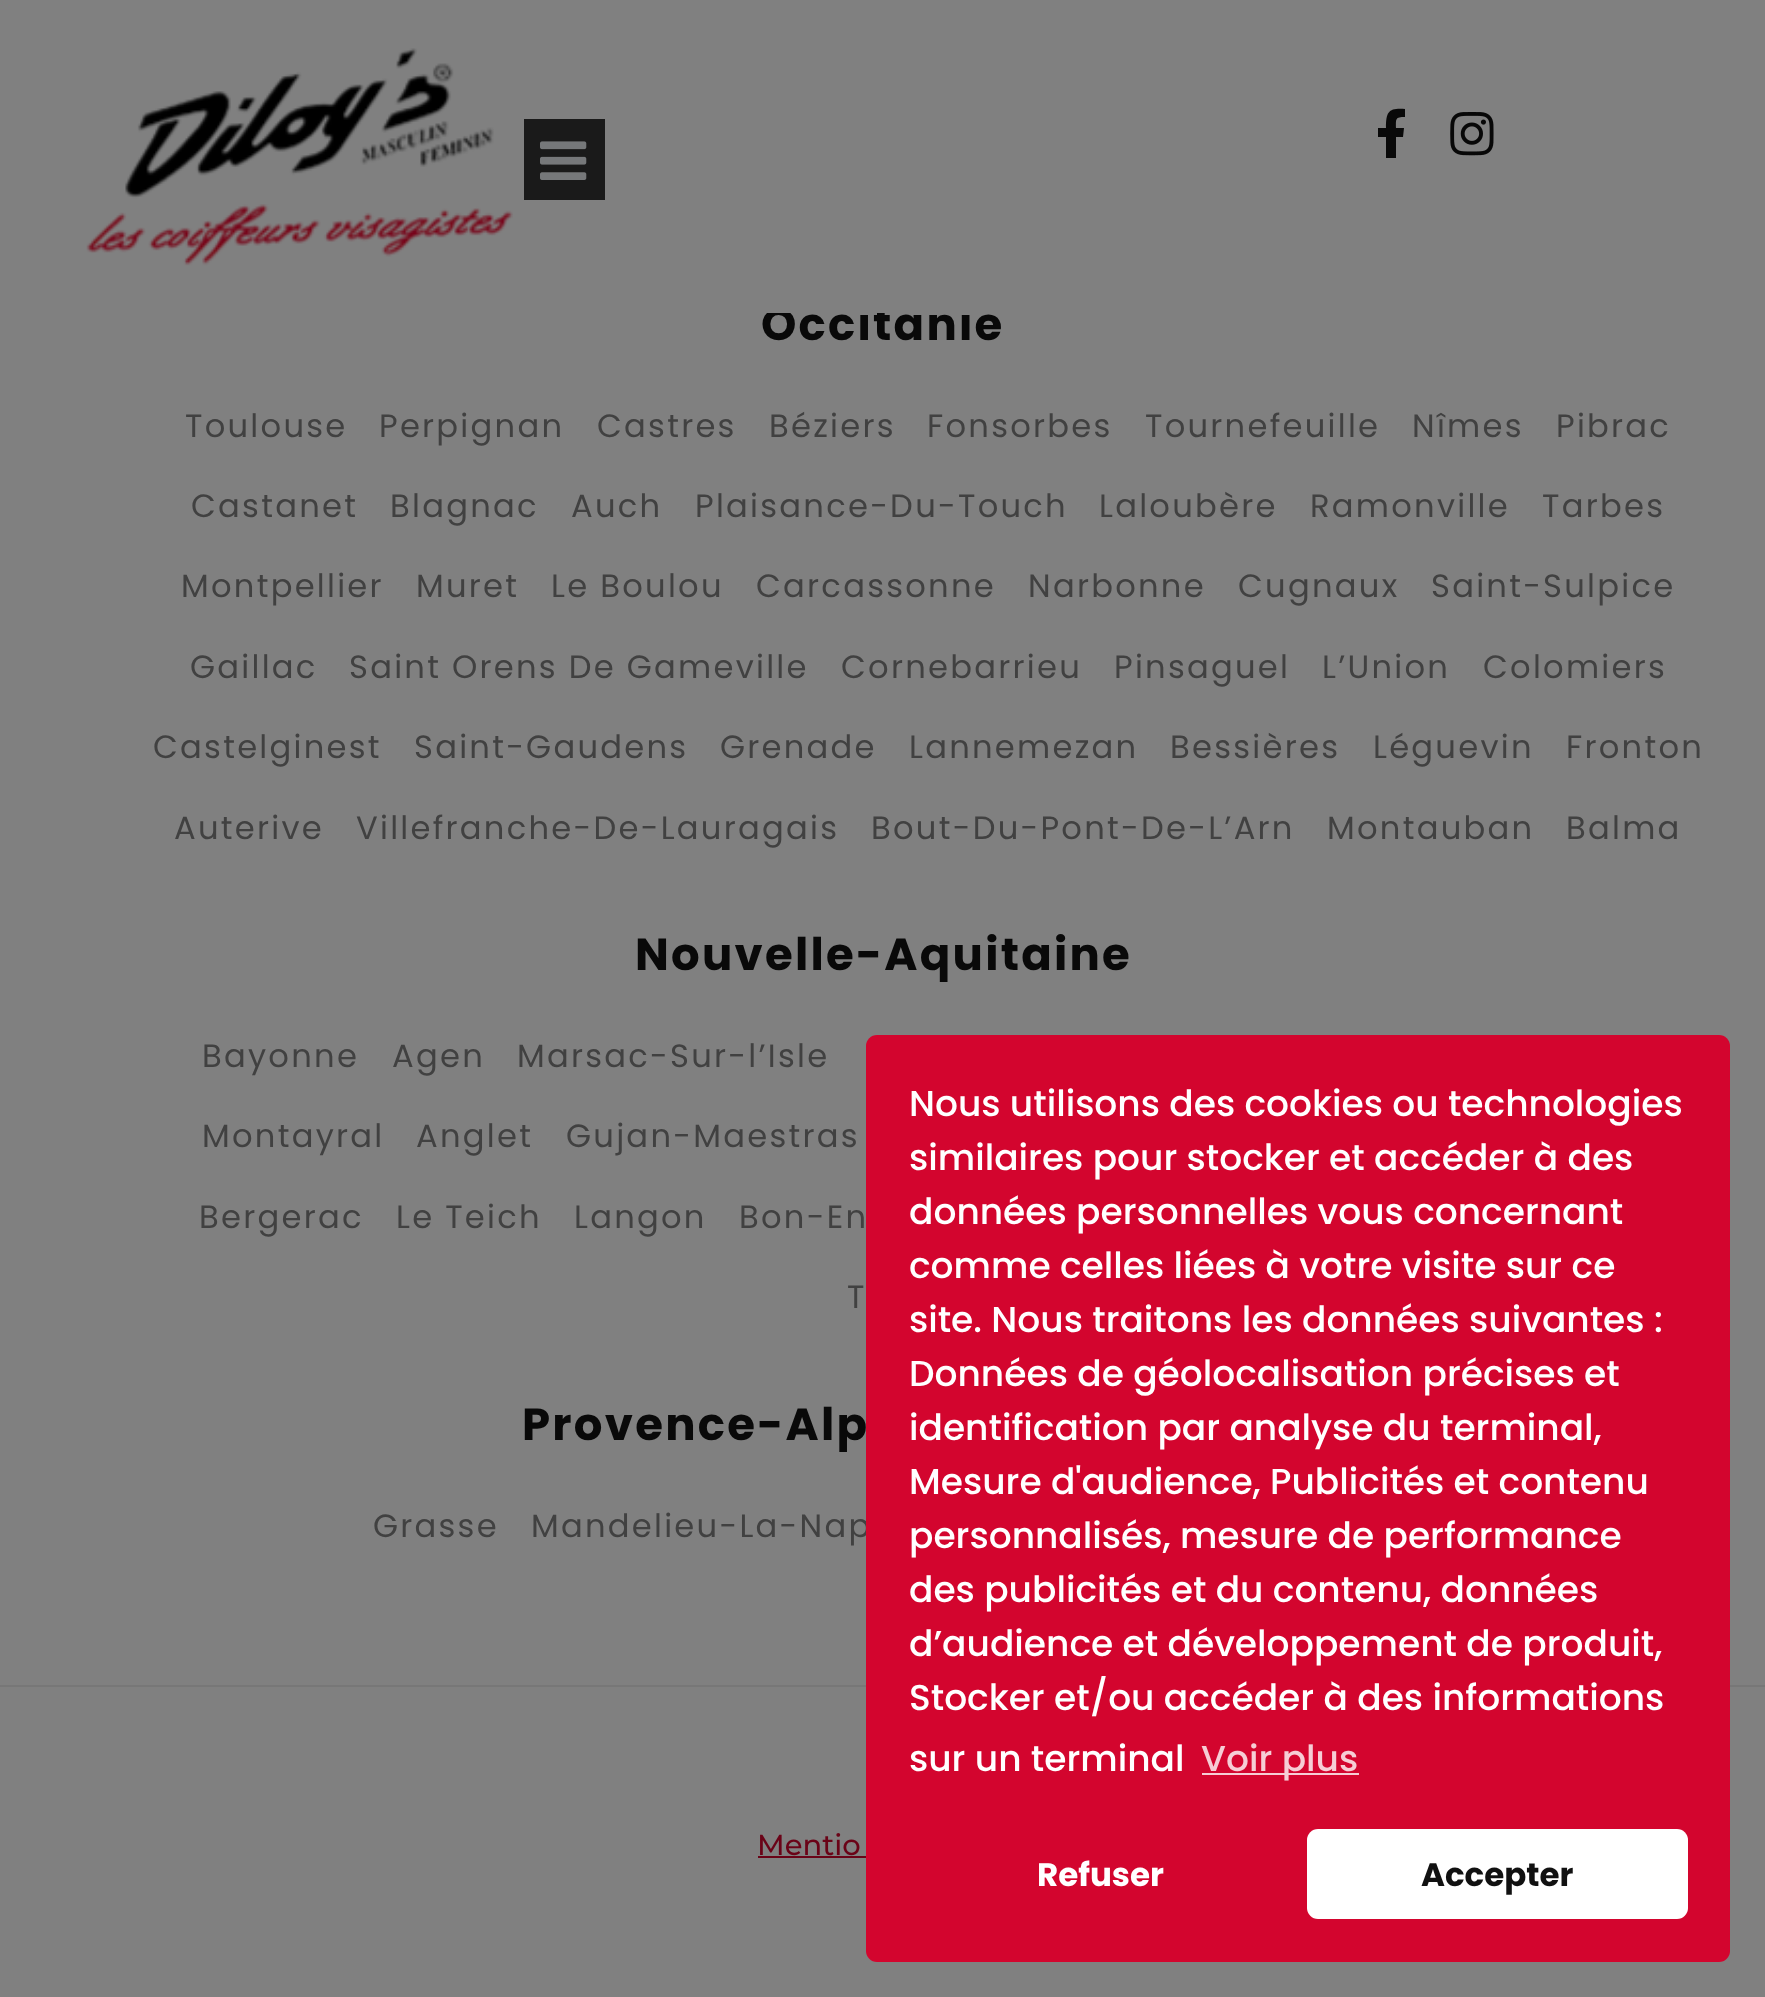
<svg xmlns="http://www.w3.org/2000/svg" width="1765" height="1997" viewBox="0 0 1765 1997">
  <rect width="100%" height="100%" fill="rgb(128,128,128)"/>
  <text x="761" y="340" font-family="Poppins" font-size="45" font-weight="bold" letter-spacing="2.25" fill="rgb(9,9,9)">Occitanie</text>
  <rect x="767" y="303" width="204" height="10" fill="rgb(128,128,128)"/>
  <image x="86" y="48" width="427" height="218" href="pic1.png"/>
  <rect x="524" y="119" width="81" height="81" fill="rgb(26,26,26)"/>
  <image x="540" y="141" width="47" height="39" href="pic2.png"/>
  <path d="M1403 137H1396V158H1386V137H1378V128H1386C1386 111 1389 108 1405 109V117C1395 117 1396 119 1396 128H1404Z" fill="rgb(9,9,9)"/>
  <image x="1450" y="112" width="44" height="44" href="pic3.png"/>
  <g font-family="Poppins" font-size="32.2" letter-spacing="2.25" fill="rgb(65,65,65)">
    <text x="185" y="437">Toulouse</text>
    <text x="379" y="437">Perpignan</text>
    <text x="597" y="437">Castres</text>
    <text x="769" y="437">Béziers</text>
    <text x="927" y="437">Fonsorbes</text>
    <text x="1145" y="437">Tournefeuille</text>
    <text x="1412" y="437">Nîmes</text>
    <text x="1556" y="437">Pibrac</text>
    <text x="191" y="517">Castanet</text>
    <text x="390" y="517">Blagnac</text>
    <text x="571" y="517">Auch</text>
    <text x="695" y="517">Plaisance-Du-Touch</text>
    <text x="1099" y="517">Laloubère</text>
    <text x="1310" y="517">Ramonville</text>
    <text x="1542" y="517">Tarbes</text>
    <text x="181" y="597">Montpellier</text>
    <text x="416" y="597">Muret</text>
    <text x="551" y="597">Le Boulou</text>
    <text x="756" y="597">Carcassonne</text>
    <text x="1028" y="597">Narbonne</text>
    <text x="1238" y="597">Cugnaux</text>
    <text x="1431" y="597">Saint-Sulpice</text>
    <text x="190" y="678">Gaillac</text>
    <text x="349" y="678">Saint Orens De Gameville</text>
    <text x="841" y="678">Cornebarrieu</text>
    <text x="1114" y="678">Pinsaguel</text>
    <text x="1322" y="678">L’Union</text>
    <text x="1483" y="678">Colomiers</text>
    <text x="153" y="758">Castelginest</text>
    <text x="414" y="758">Saint-Gaudens</text>
    <text x="720" y="758">Grenade</text>
    <text x="909" y="758">Lannemezan</text>
    <text x="1170" y="758">Bessières</text>
    <text x="1373" y="758">Léguevin</text>
    <text x="1566" y="758">Fronton</text>
    <text x="174" y="839">Auterive</text>
    <text x="356" y="839">Villefranche-De-Lauragais</text>
    <text x="871" y="839">Bout-Du-Pont-De-L’Arn</text>
    <text x="1327" y="839">Montauban</text>
    <text x="1566" y="839">Balma</text>
  </g>
  <text x="635" y="970" font-family="Poppins" font-size="45" font-weight="bold" letter-spacing="2.25" fill="rgb(9,9,9)">Nouvelle-Aquitaine</text>
  <g font-family="Poppins" font-size="32.2" letter-spacing="2.25" fill="rgb(65,65,65)">
    <text x="202" y="1067">Bayonne</text>
    <text x="392" y="1067">Agen</text>
    <text x="517" y="1067">Marsac-Sur-l’Isle</text>
    <text x="202" y="1147">Montayral</text>
    <text x="416" y="1147">Anglet</text>
    <text x="566" y="1147">Gujan-Maestras</text>
    <text x="199" y="1228">Bergerac</text>
    <text x="396" y="1228">Le Teich</text>
    <text x="574" y="1228">Langon</text>
    <text x="739" y="1228">Bon-En</text>
    <text x="847" y="1308">T</text>
  </g>
  <text x="522" y="1440" font-family="Poppins" font-size="45" font-weight="bold" letter-spacing="2.25" fill="rgb(9,9,9)">Provence-Alp</text>
  <g font-family="Poppins" font-size="32.2" letter-spacing="2.25" fill="rgb(65,65,65)">
    <text x="373" y="1537">Grasse</text>
    <text x="531" y="1537">Mandelieu-La-Nap</text>
  </g>
  <rect x="0" y="1685" width="1765" height="2" fill="rgb(119,119,119)"/>
  <text x="757" y="1855" font-family="Montserrat" font-size="29" font-weight="500" fill="rgb(106,3,23)">Mentio</text>
  <rect x="758" y="1856" width="108" height="2" fill="rgb(106,3,23)"/>
  <rect x="866" y="1035" width="864" height="927" rx="11" fill="rgb(211,5,46)"/>
  <g font-family="Poppins" font-size="36" font-weight="500" fill="rgb(255,255,255)">
    <text>
      <tspan x="909" y="1116">Nous utilisons des cookies ou technologies</tspan>
      <tspan x="909" y="1170">similaires pour stocker et accéder à des</tspan>
      <tspan x="909" y="1224">données personnelles vous concernant</tspan>
      <tspan x="909" y="1278">comme celles liées à votre visite sur ce</tspan>
      <tspan x="909" y="1332">site. Nous traitons les données suivantes :</tspan>
      <tspan x="909" y="1386">Données de géolocalisation précises et</tspan>
      <tspan x="909" y="1440">identification par analyse du terminal,</tspan>
      <tspan x="909" y="1494">Mesure d'audience, Publicités et contenu</tspan>
      <tspan x="909" y="1548">personnalisés, mesure de performance</tspan>
      <tspan x="909" y="1602">des publicités et du contenu, données</tspan>
      <tspan x="909" y="1656">d’audience et développement de produit,</tspan>
      <tspan x="909" y="1710">Stocker et/ou accéder à des informations</tspan>
      <tspan x="909" y="1771">sur un terminal</tspan>
    </text>
  </g>
  <rect x="1202" y="1773" width="157" height="2" fill="rgb(246,205,213)"/>
  <text x="1201" y="1771" font-family="Poppins" font-size="36" font-weight="500" fill="rgb(246,205,213)">Voir plus</text>
  <text x="1037" y="1886" font-family="Poppins" font-size="32.5" font-weight="bold" fill="rgb(255,255,255)">Refuser</text>
  <rect x="1307" y="1829" width="381" height="90" rx="11" fill="rgb(255,255,255)"/>
  <text x="1421" y="1886" font-family="Poppins" font-size="32.5" font-weight="bold" fill="rgb(17,17,17)">Accepter</text>
</svg>
